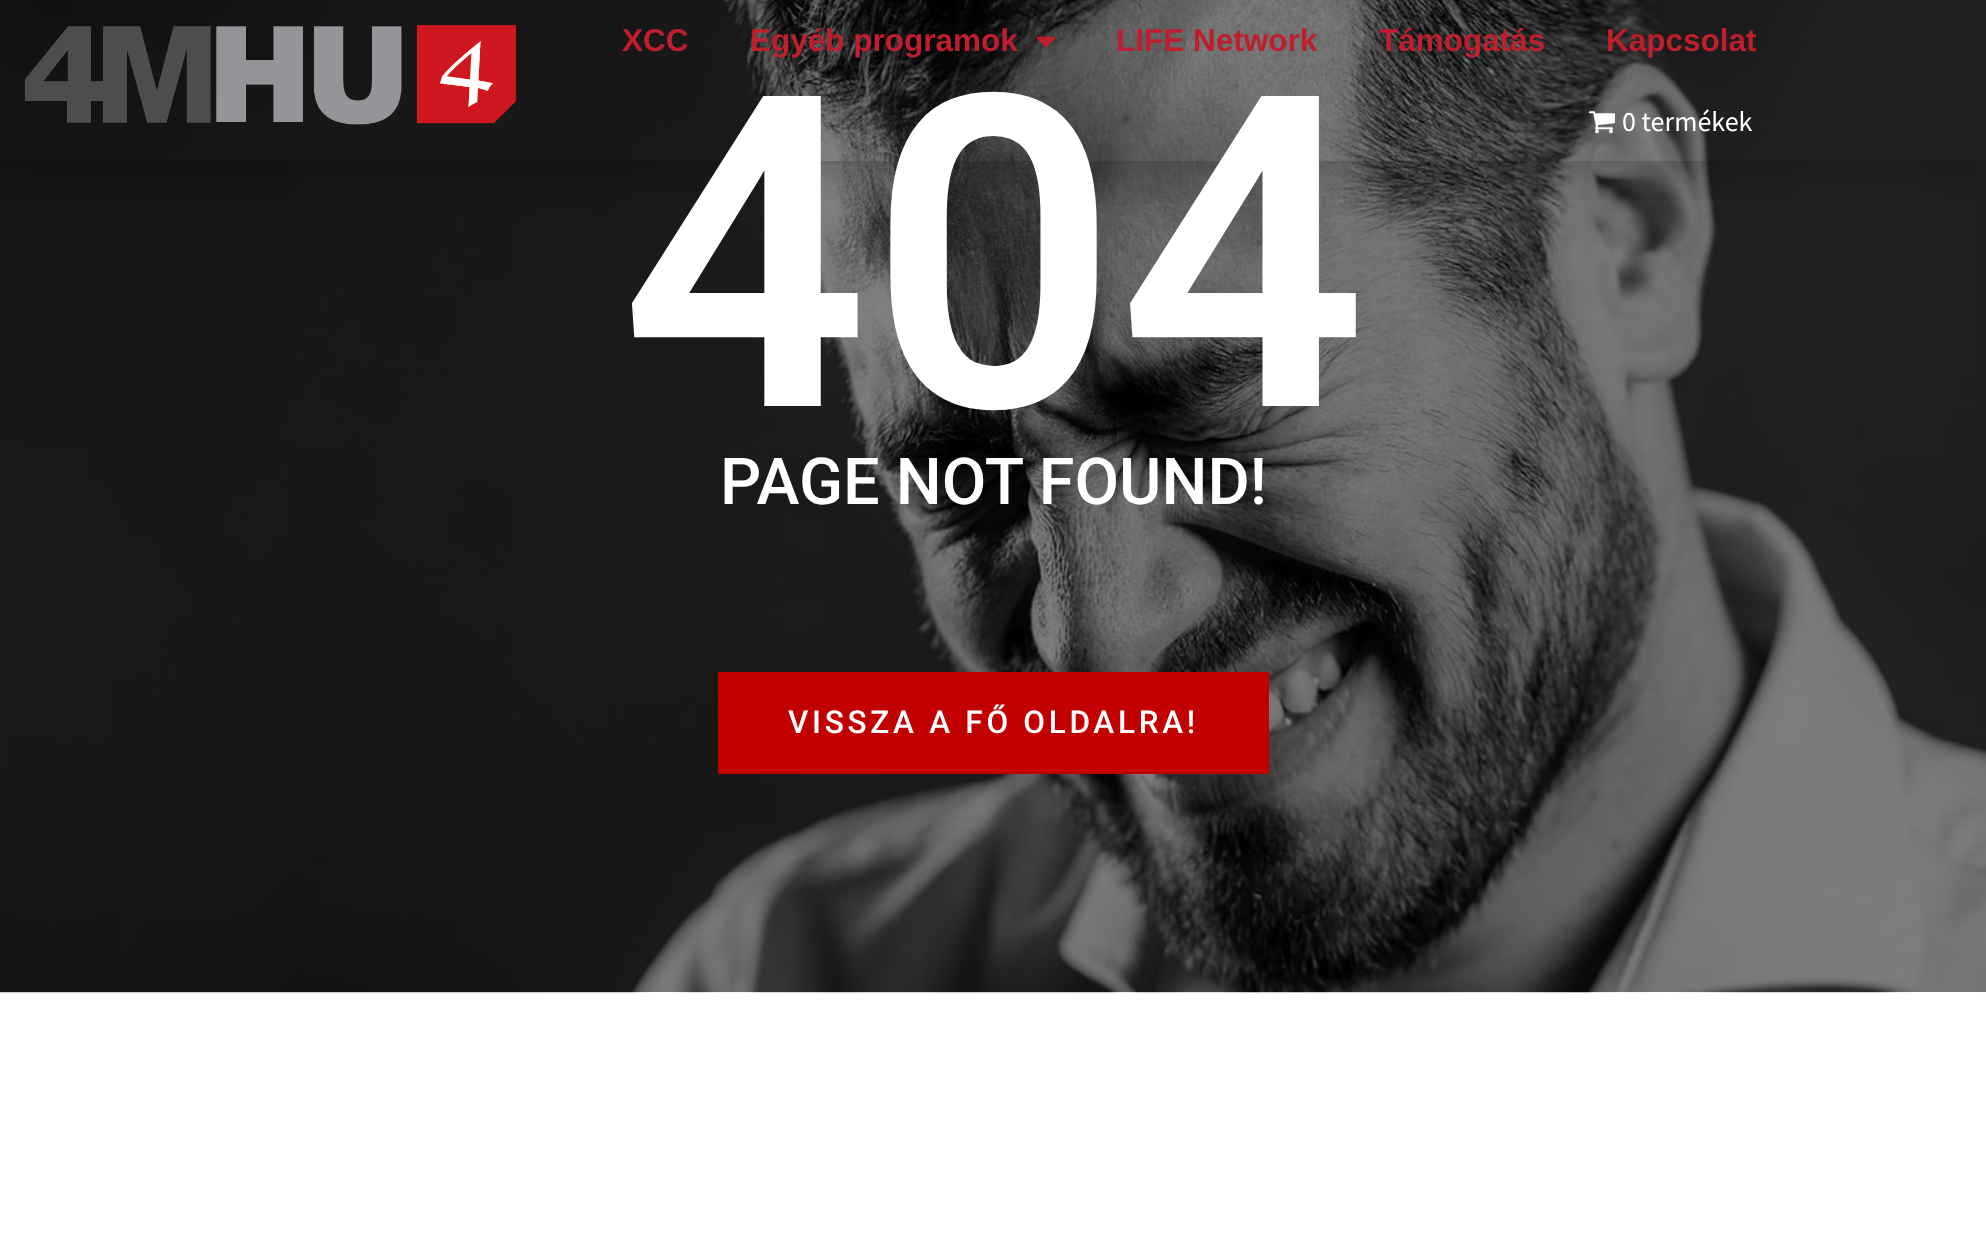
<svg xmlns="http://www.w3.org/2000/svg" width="1986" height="1233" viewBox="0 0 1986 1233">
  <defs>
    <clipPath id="clip1"><rect x="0" y="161" width="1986" height="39"/></clipPath>
  </defs>
  <rect width="100%" height="100%" fill="rgb(255,255,255)"/>
  <image x="0" y="0" width="1986" height="993" href="pic4.png"/>
  <g clip-path="url(#clip1)">
    <rect x="0" y="0" width="1986" height="161" fill="rgba(0,0,0,0.3)" filter="blur(26px)"/>
  </g>
  <image x="24" y="25" width="493" height="100" href="pic1.png"/>
  <g font-family="Liberation Sans" font-size="31.5" font-weight="bold" fill="rgb(190,30,45)">
    <text x="622" y="51">XCC</text>
    <text x="750" y="51">Egyéb programok</text>
  </g>
  <image x="1036" y="36" width="19" height="12" href="pic2.png"/>
  <g font-family="Liberation Sans" font-size="31.5" font-weight="bold" fill="rgb(190,30,45)">
    <text x="1116" y="51">LIFE Network</text>
    <text x="1379" y="51">Támogatás</text>
    <text x="1606" y="51">Kapcsolat</text>
  </g>
  <image x="1589" y="111" width="26" height="23" href="pic3.png"/>
  <text x="1622" y="131" font-family="Source Sans Pro" font-size="28" fill="rgb(255,255,255)">0 termékek</text>
  <text x="620" y="406" font-family="Roboto" font-size="436" font-weight="600" fill="rgb(255,255,255)">404</text>
  <text x="720" y="504" font-family="Roboto" font-size="64.75" font-weight="500" fill="rgb(255,255,255)">PAGE NOT FOUND!</text>
  <rect x="718" y="672" width="551" height="102" fill="rgb(195,0,0)"/>
  <text x="788" y="733" font-family="Roboto" font-size="31.5" font-weight="500" letter-spacing="3.7" fill="rgb(255,255,255)">VISSZA A FŐ OLDALRA!</text>
</svg>
